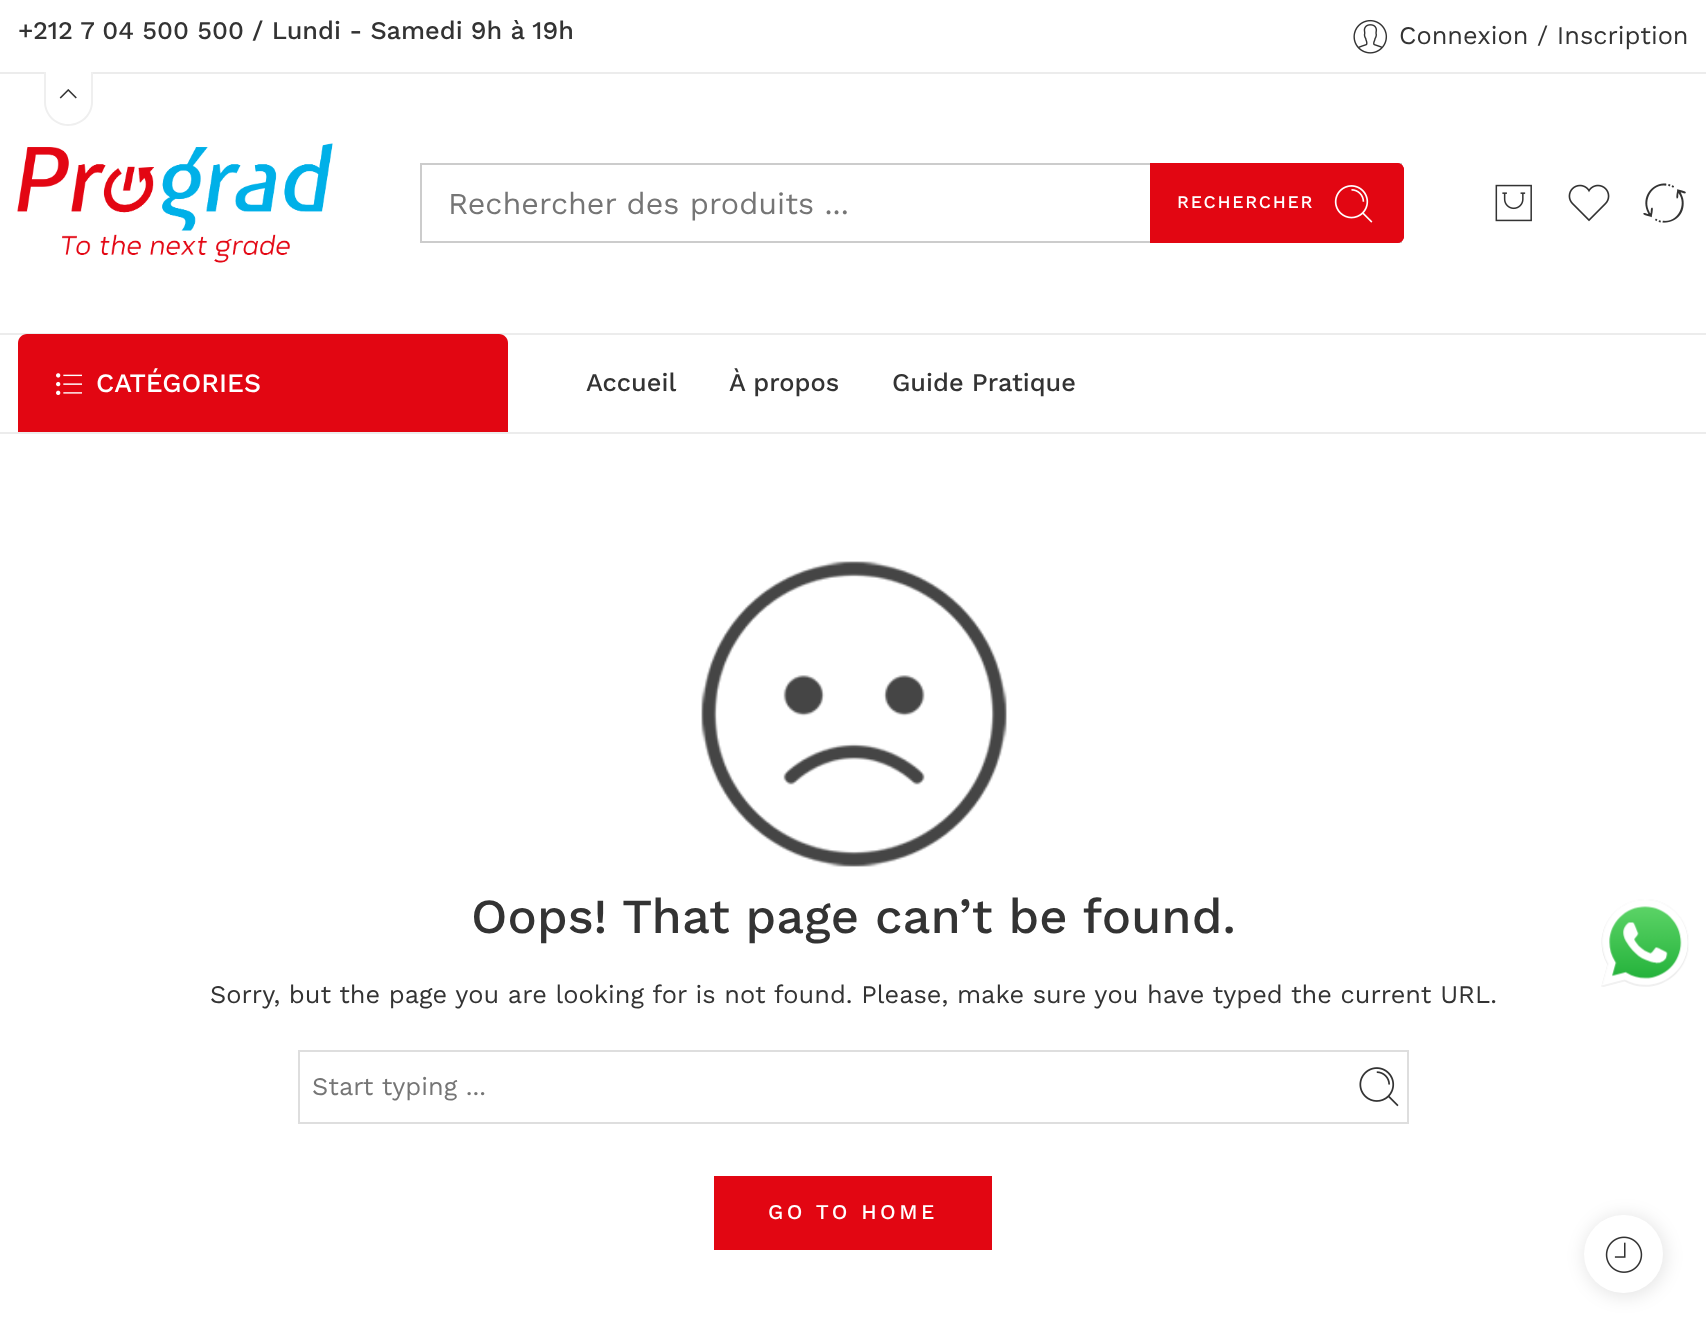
<svg xmlns="http://www.w3.org/2000/svg" width="1706" height="1337" viewBox="0 0 1706 1337">
  <rect width="100%" height="100%" fill="rgb(255,255,255)"/>
  <rect x="0" y="72" width="1706" height="2" fill="rgb(236,236,236)"/>
  <text x="18" y="39" font-family="Work Sans" font-size="25.38" font-weight="500" fill="rgb(51,51,51)">+212 7 04 500 500 / Lundi - Samedi 9h à 19h</text>
  <image x="1353" y="19" width="35" height="35" href="pic1.png"/>
  <text x="1399" y="44" font-family="Work Sans" font-size="25.38" fill="rgb(51,51,51)">Connexion / Inscription</text>
  <path d="M44 72H93V101.5C93 115 82 126 68.5 126C55 126 44 115 44 101.5Z" fill="rgb(255,255,255)"/>
  <path d="M44 72H93V102C93 115 82 126 68 126C55 126 44 115 44 102ZM46 72H91V102C91 114 81 124 68 124C56 124 46 114 46 102Z" fill="rgb(239,239,239)" fill-rule="evenodd"/>
  <image x="59" y="89" width="18" height="10" href="pic2.png"/>
  <image x="17" y="143" width="316" height="120" href="pic3.png"/>
  <rect x="421" y="164" width="980" height="78" fill="none" stroke="rgb(204,204,204)" stroke-width="2"/>
  <text x="448" y="214" font-family="Work Sans" font-size="30.5" fill="rgb(117,117,117)">Rechercher des produits ...</text>
  <path d="M1150 163H1397C1401 163 1404 166 1404 170V236C1404 240 1401 243 1397 243H1150Z" fill="rgb(226,6,18)"/>
  <path d="M1150 163V243H1397C1399 243 1401 242 1402 241H1152V165H1402C1401 164 1399 163 1397 163ZM1402 165V241C1403 240 1404 238 1404 236V170C1404 168 1403 166 1402 165Z" fill="rgb(226,6,18)" fill-rule="evenodd"/>
  <text x="1177" y="208" font-family="Work Sans" font-size="17.75" font-weight="500" letter-spacing="1.75" fill="rgb(255,255,255)">RECHERCHER</text>
  <image x="1334" y="185" width="39" height="38" href="pic4.png"/>
  <image x="1495" y="184" width="37" height="38" href="pic5.png"/>
  <image x="1568" y="184" width="42" height="38" href="pic6.png"/>
  <image x="1643" y="183" width="43" height="40" href="pic7.png"/>
  <rect x="0" y="333" width="1706" height="2" fill="rgb(236,236,236)"/>
  <rect x="0" y="432" width="1706" height="2" fill="rgb(236,236,236)"/>
  <path d="M27 334H499C504 334 508 338 508 343V432H18V343C18 338 22 334 27 334Z" fill="rgb(226,6,18)"/>
  <image x="56" y="373" width="26" height="22" href="pic8.png"/>
  <text x="96" y="392" font-family="Work Sans" font-size="26.5" font-weight="500" fill="rgb(255,255,255)">CATÉGORIES</text>
  <g font-family="Work Sans" font-size="25.38" font-weight="500" fill="rgb(51,51,51)">
    <text x="586" y="391">Accueil</text>
    <text x="729" y="391">À propos</text>
    <text x="892" y="391">Guide Pratique</text>
  </g>
  <image x="701" y="561" width="306" height="306" href="pic9.png"/>
  <text x="471" y="933" font-family="Work Sans" font-size="49" font-weight="500" fill="rgb(51,51,51)">Oops! That page can’t be found.</text>
  <text x="210" y="1003" font-family="Work Sans" font-size="25.38" fill="rgb(51,51,51)">Sorry, but the page you are looking for is not found. Please, make sure you have typed the current URL.</text>
  <rect x="299" y="1051" width="1109" height="72" fill="none" stroke="rgb(222,222,222)" stroke-width="2"/>
  <text x="312" y="1095" font-family="Work Sans" font-size="25.38" fill="rgb(117,117,117)">Start typing ...</text>
  <image x="1359" y="1067" width="40" height="40" href="pic10.png"/>
  <rect x="714" y="1176" width="278" height="74" fill="rgb(226,6,18)"/>
  <text x="768" y="1219" font-family="Work Sans" font-size="21" font-weight="500" letter-spacing="3.5" fill="rgb(255,255,255)">GO TO HOME</text>
  <image x="1601" y="899" width="88" height="88" href="pic11.png"/>
  <rect x="1584" y="1215" width="82" height="82" rx="41" fill="rgba(0,0,0,0.1)" filter="blur(9px)"/>
  <rect x="1584" y="1215" width="79" height="78" rx="39" fill="rgb(255,255,255)"/>
  <image x="1605" y="1236" width="38" height="37" href="pic12.png"/>
</svg>
